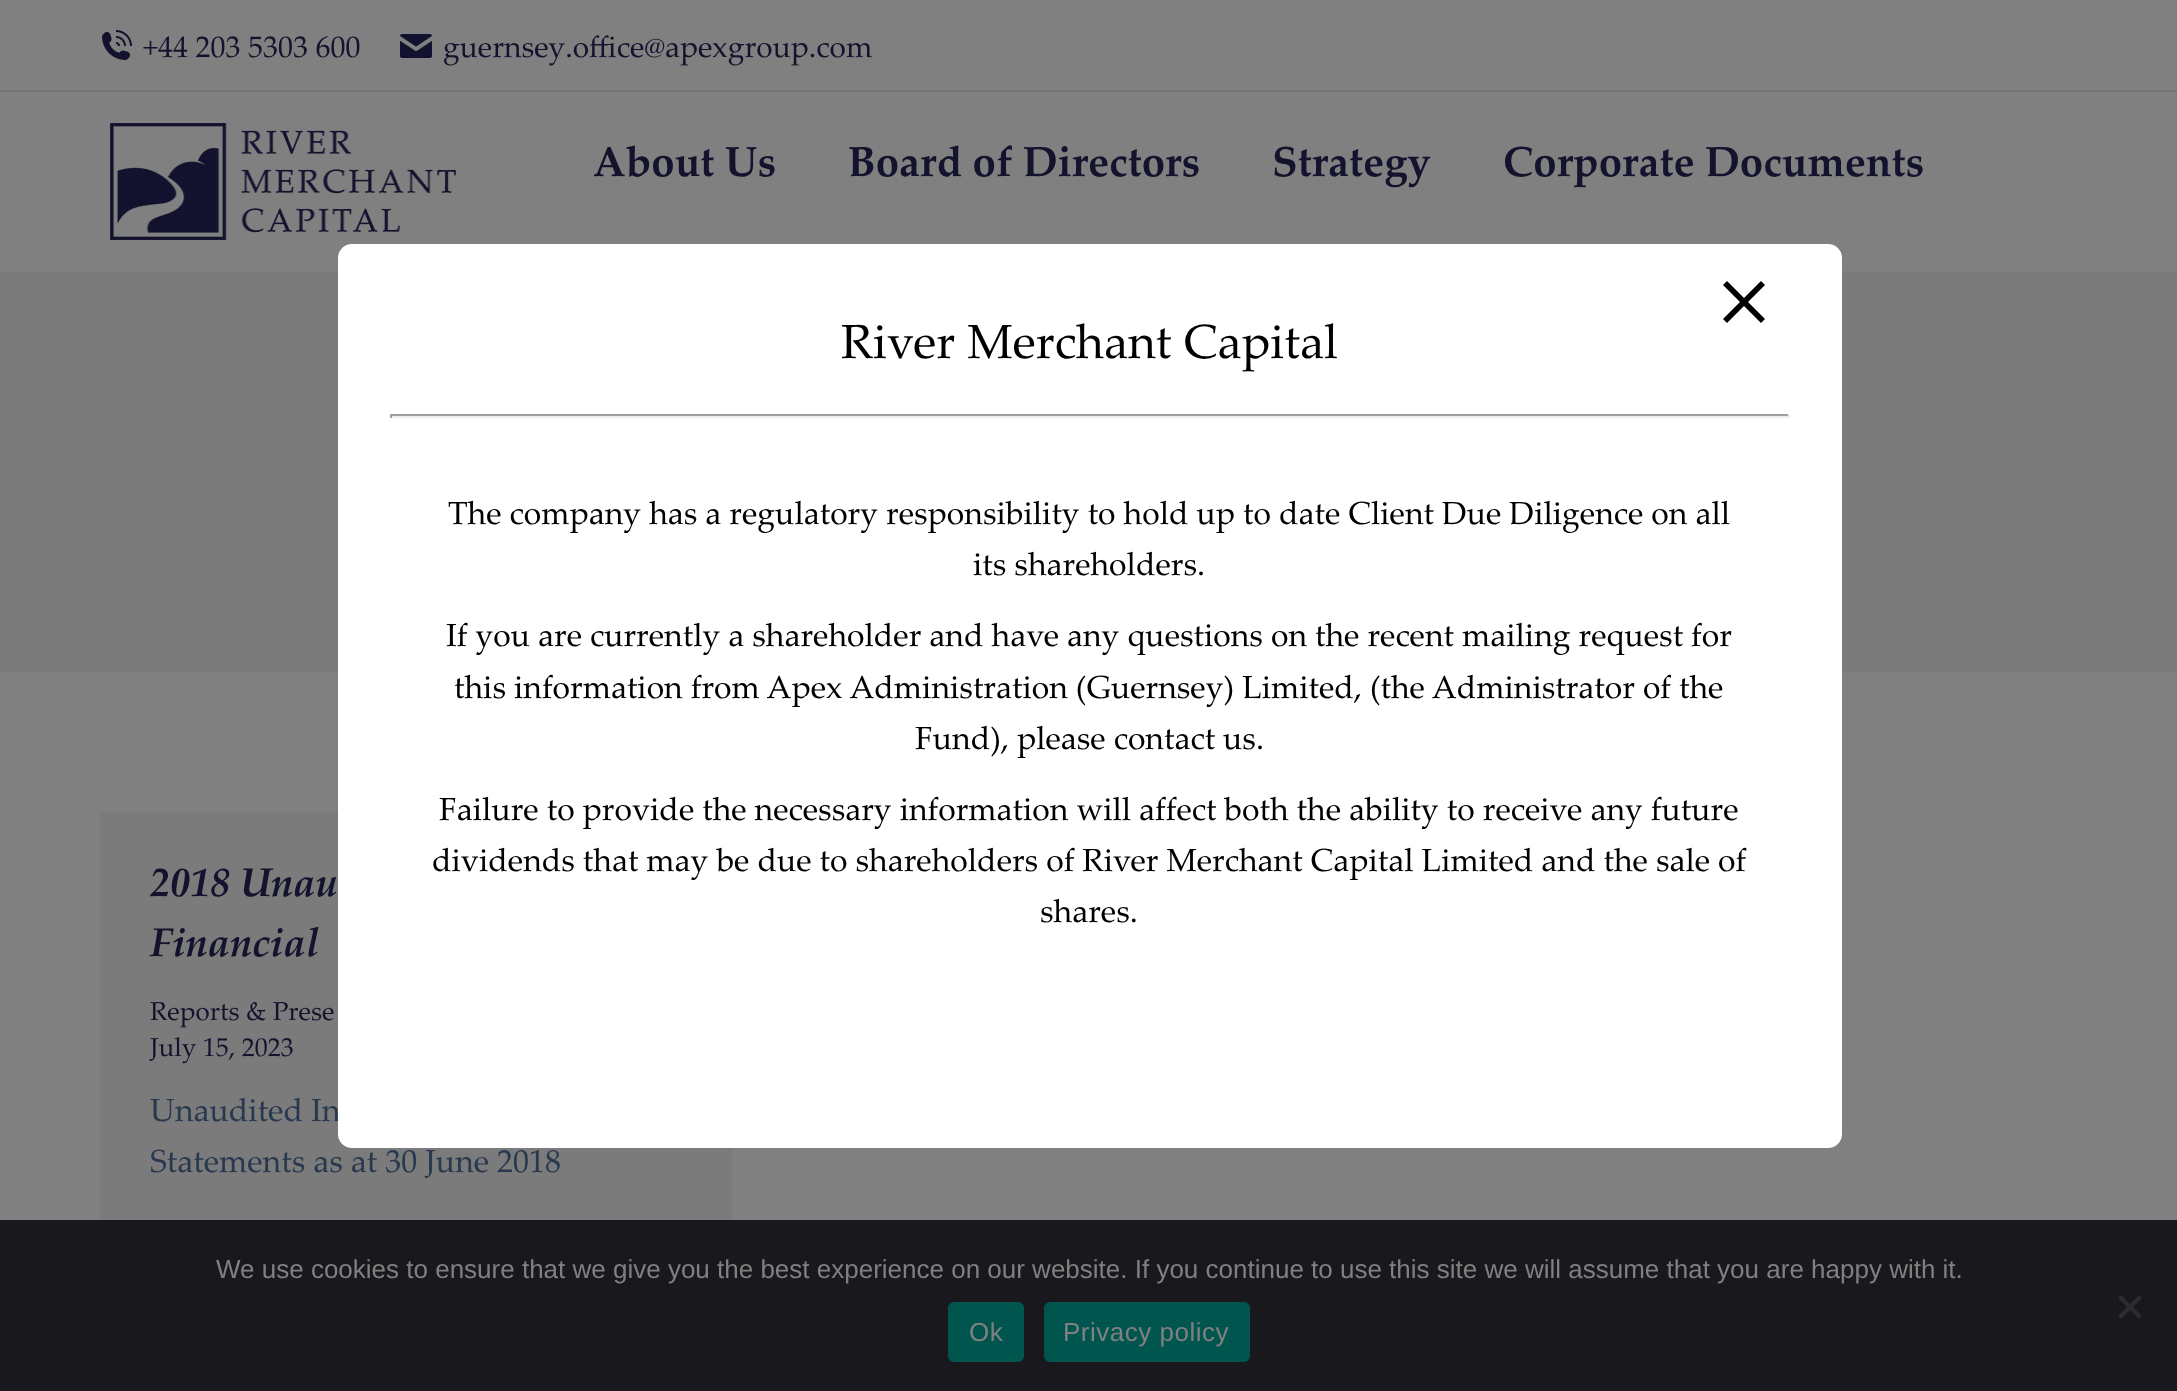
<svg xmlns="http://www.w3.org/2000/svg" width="2177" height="1391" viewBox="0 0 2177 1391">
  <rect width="100%" height="100%" fill="rgb(128,128,128)"/>
  <image x="102" y="30" width="30" height="30" href="pic1.png"/>
  <text x="143" y="57" font-family="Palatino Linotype" font-size="30" fill="rgb(19,19,46)">+44 203 5303 600</text>
  <image x="400" y="34" width="32" height="24" href="pic2.png"/>
  <text x="443" y="57" font-family="Palatino Linotype" font-size="30" fill="rgb(19,19,46)">guernsey.office@apexgroup.com</text>
  <rect x="0" y="90" width="2177" height="2" fill="rgb(117,117,117)"/>
  <image x="110" y="123" width="346" height="117" href="pic3.png"/>
  <g font-family="Palatino Linotype" font-size="42" font-weight="bold" fill="rgb(19,19,46)">
    <text x="593" y="176">About Us</text>
    <text x="848" y="176">Board of Directors</text>
    <text x="1272" y="176">Strategy</text>
    <text x="1503" y="176">Corporate Documents</text>
  </g>
  <rect x="0" y="272" width="2177" height="400" fill="rgb(123,123,123)"/>
  <rect x="100" y="812" width="632" height="408" fill="rgb(123,123,123)"/>
  <g font-family="Palatino Linotype" font-size="40" font-weight="bold" font-style="italic" fill="rgb(19,19,46)">
    <text>
      <tspan x="150" y="896">2018 Unau</tspan>
      <tspan x="150" y="956">Financial</tspan>
    </text>
  </g>
  <g font-family="Palatino Linotype" font-size="26" fill="rgb(19,19,46)">
    <text>
      <tspan x="150" y="1020">Reports &amp; Prese</tspan>
      <tspan x="150" y="1056">July 15, 2023</tspan>
    </text>
  </g>
  <g font-family="Palatino Linotype" font-size="32" fill="rgb(40,56,78)">
    <text>
      <tspan x="150" y="1121">Unaudited In</tspan>
      <tspan x="150" y="1172">Statements as at 30 June 2018</tspan>
    </text>
  </g>
  <rect x="339" y="245" width="1502" height="902" rx="13" fill="rgb(255,255,255)" stroke="rgb(255,255,255)" stroke-width="2"/>
  <path d="M1765 285L1761 281L1744 298L1727 281L1723 285L1740 302L1723 319L1727 323L1744 306L1761 323L1765 319L1748 302Z" fill="rgb(0,0,0)"/>
  <text x="841" y="358" font-family="Palatino Linotype" font-size="48" fill="rgb(0,0,0)">River Merchant Capital</text>
  <rect x="390" y="414" width="1400" height="2" fill="rgb(159,159,159)"/>
  <rect x="1788" y="414" width="2" height="4" fill="rgb(238,238,238)"/>
  <rect x="390" y="416" width="1400" height="2" fill="rgb(238,238,238)"/>
  <rect x="390" y="414" width="2" height="4" fill="rgb(159,159,159)"/>
  <g font-family="Palatino Linotype" font-size="32" fill="rgb(0,0,0)">
    <text x="448" y="524">The company has a regulatory responsibility to hold up to date Client Due Diligence on all</text>
    <text x="973" y="575">its shareholders.</text>
    <text x="446" y="646">If you are currently a shareholder and have any questions on the recent mailing request for</text>
    <text x="454" y="698">this information from Apex Administration (Guernsey) Limited, (the Administrator of the</text>
    <text x="915" y="749">Fund), please contact us.</text>
    <text x="439" y="820">Failure to provide the necessary information will affect both the ability to receive any future</text>
    <text x="432" y="871">dividends that may be due to shareholders of River Merchant Capital Limited and the sale of</text>
    <text x="1040" y="922">shares.</text>
  </g>
  <rect x="0" y="1220" width="2177" height="171" fill="rgb(25,25,29)"/>
  <text x="216" y="1278" font-family="Liberation Sans" font-size="26" fill="rgb(128,128,128)">We use cookies to ensure that we give you the best experience on our website. If you continue to use this site we will assume that you are happy with it.</text>
  <path d="M2139 1295L2142 1298L2121 1319L2118 1316Z" fill="rgb(45,45,47)"/>
  <path d="M2118 1298L2121 1295L2142 1316L2139 1319Z" fill="rgb(45,45,47)"/>
  <rect x="948" y="1302" width="76" height="60" rx="6" fill="rgb(0,85,79)"/>
  <text x="969" y="1341" font-family="Liberation Sans" font-size="26" letter-spacing="0.5" fill="rgb(128,128,128)">Ok</text>
  <rect x="1044" y="1302" width="206" height="60" rx="6" fill="rgb(0,85,79)"/>
  <text x="1063" y="1341" font-family="Liberation Sans" font-size="26" letter-spacing="0.5" fill="rgb(128,128,128)">Privacy policy</text>
</svg>
